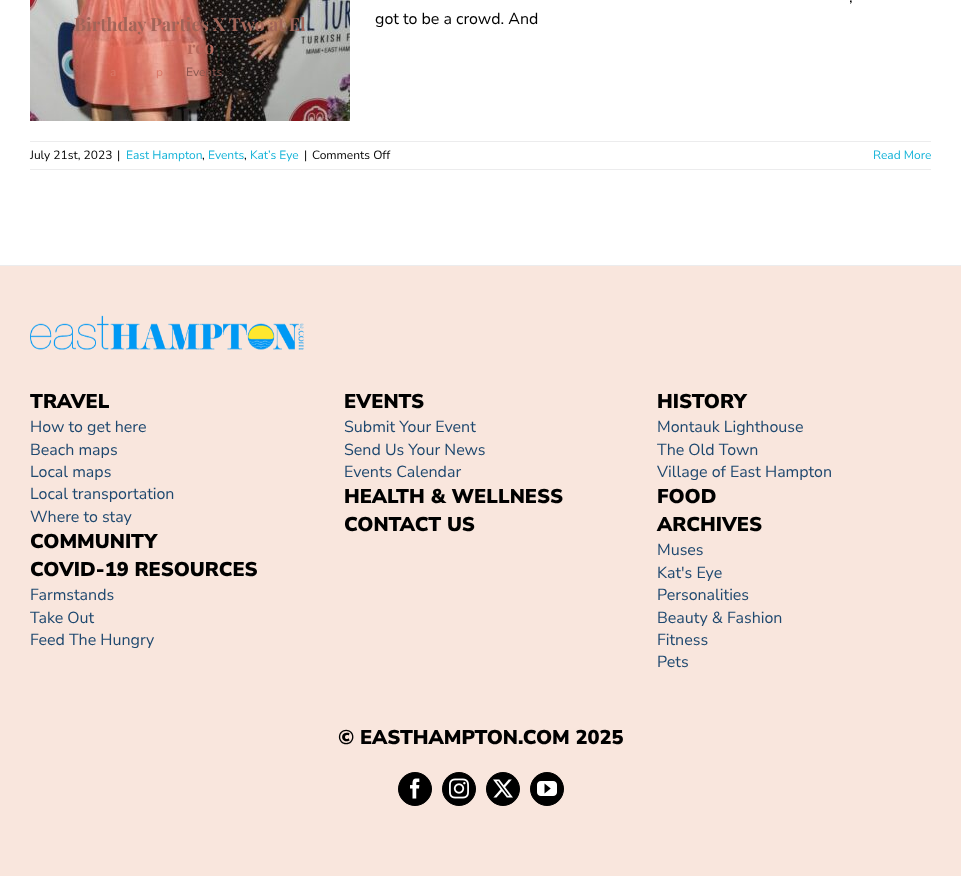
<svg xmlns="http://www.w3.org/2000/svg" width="961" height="876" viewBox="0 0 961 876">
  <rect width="100%" height="100%" fill="rgb(255,255,255)"/>
  <image x="30" y="0" width="320" height="121" href="pic1.png"/>
  <text x="74" y="31" font-family="Playfair Display" font-size="18" font-weight="bold" fill="rgb(161,100,88)">Birthday Parties X Two at El</text>
  <text x="187" y="54" font-family="Playfair Display" font-size="18" font-weight="bold" fill="rgb(182,104,91)">rco</text>
  <g font-family="Nunito Sans" font-size="12" fill="rgb(218,120,104)">
    <text x="110" y="76">a</text>
    <text x="156" y="76">p</text>
  </g>
  <text x="186" y="76" font-family="Nunito Sans" font-size="12" fill="rgb(137,85,77)">Events</text>
  <g font-family="Nunito Sans" font-size="16" fill="rgb(0,0,0)">
    <text x="849" y="2">,</text>
    <text x="375" y="24">got to be a crowd. And</text>
  </g>
  <rect x="30" y="141" width="901" height="1" fill="rgb(236,236,237)"/>
  <rect x="30" y="169" width="901" height="1" fill="rgb(236,236,237)"/>
  <g font-family="Nunito Sans" font-size="12" fill="rgb(0,0,0)">
    <text x="30" y="159">July 21st, 2023</text>
    <text x="117" y="159">|</text>
  </g>
  <text x="126" y="159" font-family="Nunito Sans" font-size="12" fill="rgb(20,179,216)">East Hampton</text>
  <text x="202" y="159" font-family="Nunito Sans" font-size="12" fill="rgb(0,0,0)">,</text>
  <text x="208" y="159" font-family="Nunito Sans" font-size="12" fill="rgb(20,179,216)">Events</text>
  <text x="244" y="159" font-family="Nunito Sans" font-size="12" fill="rgb(0,0,0)">,</text>
  <text x="250" y="159" font-family="Nunito Sans" font-size="12" fill="rgb(20,179,216)">Kat’s Eye</text>
  <g font-family="Nunito Sans" font-size="12" fill="rgb(0,0,0)">
    <text x="304" y="159">|</text>
    <text x="312" y="159">Comments Off</text>
  </g>
  <text x="873" y="159" font-family="Nunito Sans" font-size="12" fill="rgb(20,179,216)">Read More</text>
  <rect x="0" y="266" width="961" height="610" fill="rgb(249,230,221)"/>
  <rect x="0" y="265" width="961" height="1" fill="rgb(236,236,237)"/>
  <image x="30" y="315" width="274" height="35" href="pic2.png"/>
  <text x="30" y="408" font-family="Nunito Sans" font-size="20" font-weight="900" fill="rgb(0,0,0)">TRAVEL</text>
  <g font-family="Nunito Sans" font-size="16" fill="rgb(30,72,111)">
    <text>
      <tspan x="30" y="432">How to get here</tspan>
      <tspan x="30" y="455">Beach maps</tspan>
      <tspan x="30" y="477">Local maps</tspan>
      <tspan x="30" y="499">Local transportation</tspan>
      <tspan x="30" y="522">Where to stay</tspan>
    </text>
  </g>
  <g font-family="Nunito Sans" font-size="20" font-weight="900" fill="rgb(0,0,0)">
    <text>
      <tspan x="30" y="548">COMMUNITY</tspan>
      <tspan x="30" y="576">COVID-19 RESOURCES</tspan>
    </text>
  </g>
  <g font-family="Nunito Sans" font-size="16" fill="rgb(30,72,111)">
    <text>
      <tspan x="30" y="600">Farmstands</tspan>
      <tspan x="30" y="623">Take Out</tspan>
      <tspan x="30" y="645">Feed The Hungry</tspan>
    </text>
  </g>
  <text x="344" y="408" font-family="Nunito Sans" font-size="20" font-weight="900" fill="rgb(0,0,0)">EVENTS</text>
  <g font-family="Nunito Sans" font-size="16" fill="rgb(30,72,111)">
    <text>
      <tspan x="344" y="432">Submit Your Event</tspan>
      <tspan x="344" y="455">Send Us Your News</tspan>
      <tspan x="344" y="477">Events Calendar</tspan>
    </text>
  </g>
  <g font-family="Nunito Sans" font-size="20" font-weight="900" fill="rgb(0,0,0)">
    <text>
      <tspan x="344" y="503">HEALTH &amp; WELLNESS</tspan>
      <tspan x="344" y="531">CONTACT US</tspan>
    </text>
    <text x="657" y="408">HISTORY</text>
  </g>
  <g font-family="Nunito Sans" font-size="16" fill="rgb(30,72,111)">
    <text>
      <tspan x="657" y="432">Montauk Lighthouse</tspan>
      <tspan x="657" y="455">The Old Town</tspan>
      <tspan x="657" y="477">Village of East Hampton</tspan>
    </text>
  </g>
  <g font-family="Nunito Sans" font-size="20" font-weight="900" fill="rgb(0,0,0)">
    <text>
      <tspan x="657" y="503">FOOD</tspan>
      <tspan x="657" y="531">ARCHIVES</tspan>
    </text>
  </g>
  <g font-family="Nunito Sans" font-size="16" fill="rgb(30,72,111)">
    <text>
      <tspan x="657" y="555">Muses</tspan>
      <tspan x="657" y="578">Kat's Eye</tspan>
      <tspan x="657" y="600">Personalities</tspan>
      <tspan x="657" y="623">Beauty &amp; Fashion</tspan>
      <tspan x="657" y="645">Fitness</tspan>
      <tspan x="657" y="667">Pets</tspan>
    </text>
  </g>
  <text x="338" y="744" font-family="Nunito Sans" font-size="20" font-weight="900" fill="rgb(0,0,0)">© EASTHAMPTON.COM 2025</text>
  <circle cx="415" cy="789" r="16.5" fill="rgb(0,0,0)" stroke="rgb(0,0,0)"/>
  <image x="410" y="778" width="10" height="21" href="pic3.png"/>
  <circle cx="459" cy="789" r="16.5" fill="rgb(0,0,0)" stroke="rgb(0,0,0)"/>
  <image x="449" y="778" width="20" height="21" href="pic4.png"/>
  <circle cx="503" cy="789" r="16.5" fill="rgb(0,0,0)" stroke="rgb(0,0,0)"/>
  <image x="493" y="779" width="20" height="19" href="pic5.png"/>
  <circle cx="547" cy="789" r="16.5" fill="rgb(0,0,0)" stroke="rgb(0,0,0)"/>
  <image x="537" y="781" width="20" height="15" href="pic6.png"/>
</svg>
